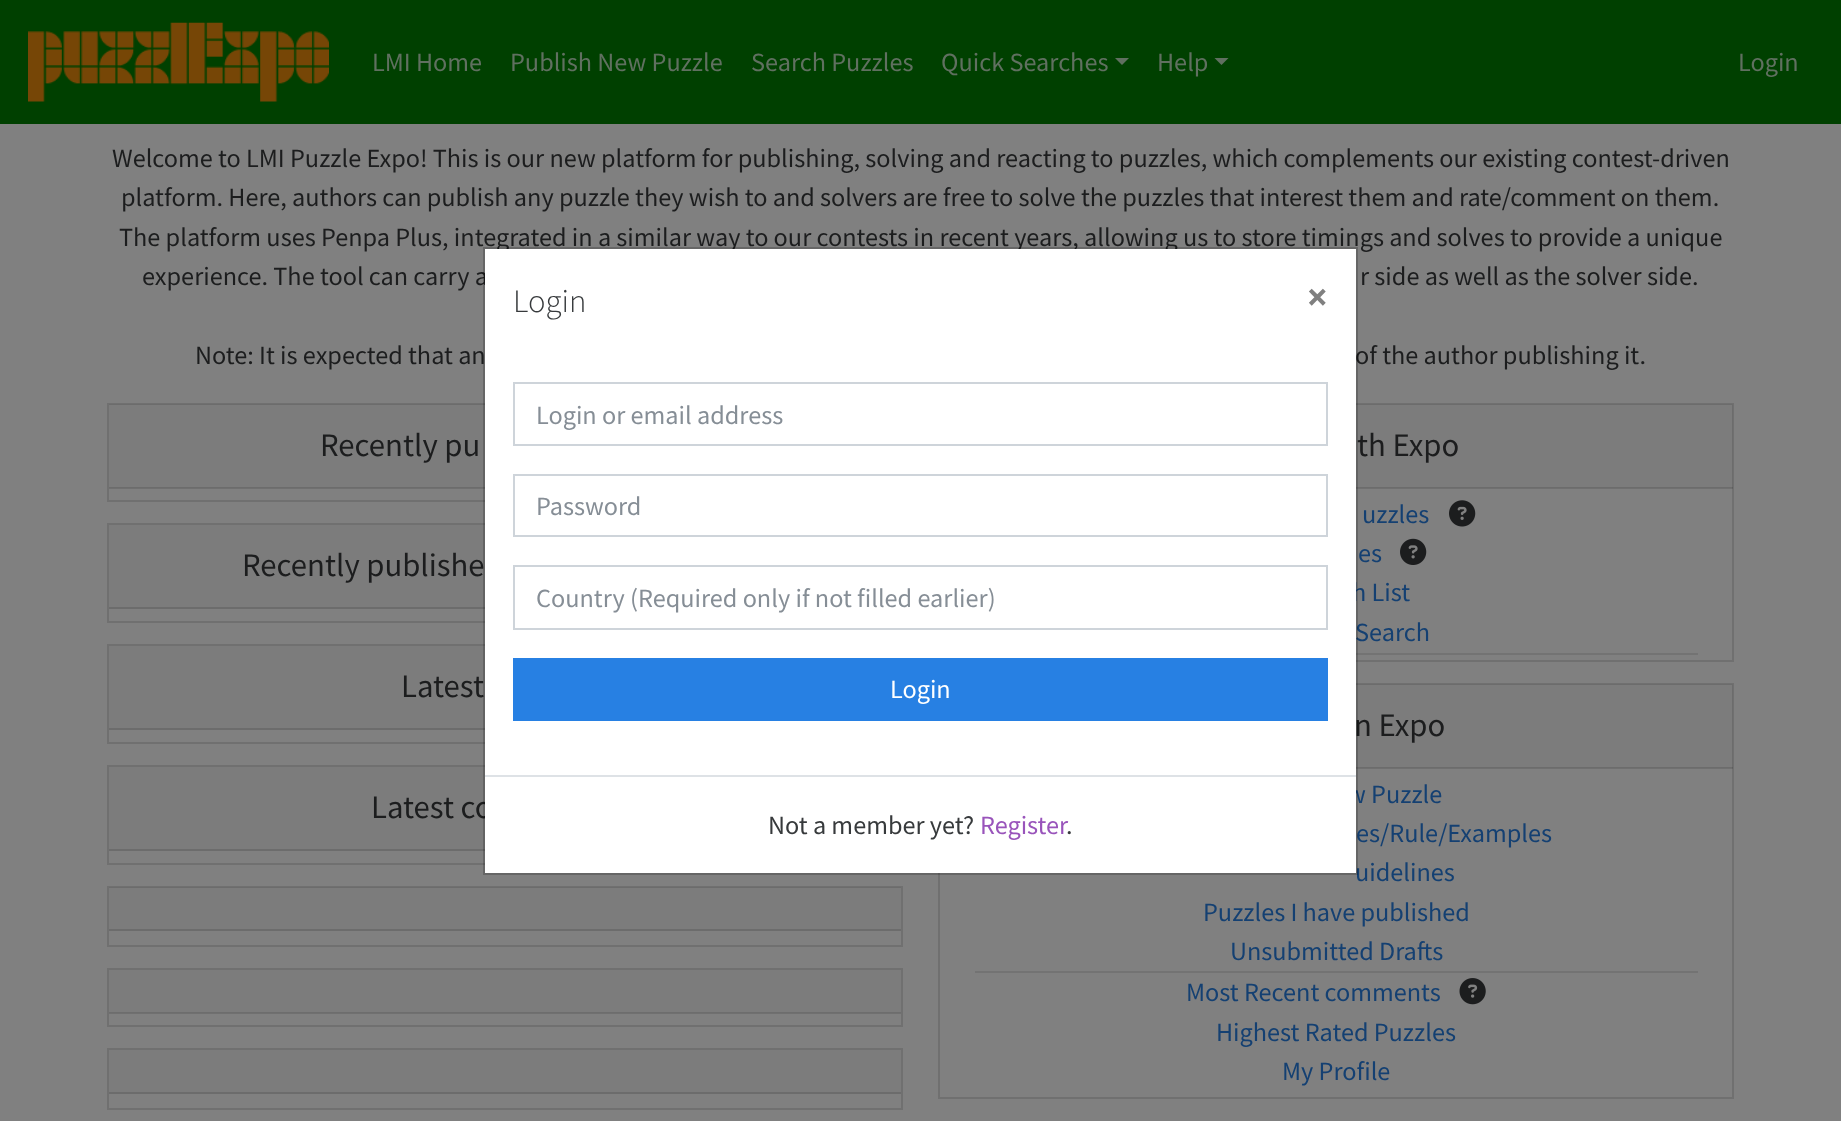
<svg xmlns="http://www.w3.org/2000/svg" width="1841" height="1121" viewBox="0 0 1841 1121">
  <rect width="100%" height="100%" fill="rgb(128,128,128)"/>
  <rect x="109" y="1013" width="792" height="1" fill="rgb(112,112,112)"/>
  <rect x="0" y="0" width="1841" height="124" fill="rgb(0,64,0)"/>
  <image x="28" y="22" width="301" height="80" href="pic1.png"/>
  <g font-family="Source Sans Pro" font-size="26.25" fill="rgb(96,112,96)">
    <text x="372" y="71">LMI Home</text>
    <text x="510" y="71">Publish New Puzzle</text>
    <text x="751" y="71">Search Puzzles</text>
    <text x="941" y="71">Quick Searches</text>
  </g>
  <path d="M1115 58H1129L1122 65Z" fill="rgb(96,112,96)"/>
  <text x="1157" y="71" font-family="Source Sans Pro" font-size="26.25" fill="rgb(96,112,96)">Help</text>
  <path d="M1214.5 58H1228.5L1221.5 65Z" fill="rgb(96,112,96)"/>
  <text x="1738" y="71" font-family="Source Sans Pro" font-size="26.25" fill="rgb(96,112,96)">Login</text>
  <g font-family="Source Sans Pro" font-size="26.25" fill="rgb(28,29,30)">
    <text x="112" y="167">Welcome to LMI Puzzle Expo! This is our new platform for publishing, solving and reacting to puzzles, which complements our existing contest-driven</text>
    <text x="121" y="206">platform. Here, authors can publish any puzzle they wish to and solvers are free to solve the puzzles that interest them and rate/comment on them.</text>
    <text x="119" y="246">The platform uses Penpa Plus, integrated in a similar way to our contests in recent years, allowing us to store timings and solves to provide a unique</text>
    <text x="142" y="285">experience. The tool can carry a</text>
    <text x="1360" y="285">r side as well as the solver side.</text>
    <text x="195" y="364">Note: It is expected that an</text>
    <text x="1355" y="364">of the author publishing it.</text>
  </g>
  <rect x="108" y="404" width="794" height="97" fill="none" stroke="rgb(112,112,112)" stroke-width="2"/>
  <rect x="939" y="404" width="794" height="257" fill="none" stroke="rgb(112,112,112)" stroke-width="2"/>
  <g font-family="Source Sans Pro" font-size="26.25" fill="rgb(20,64,114)">
    <text x="1352" y="601">h List</text>
    <text x="1355" y="641">Search</text>
  </g>
  <rect x="108" y="524" width="794" height="98" fill="none" stroke="rgb(112,112,112)" stroke-width="2"/>
  <rect x="108" y="645" width="794" height="98" fill="none" stroke="rgb(112,112,112)" stroke-width="2"/>
  <rect x="108" y="766" width="794" height="98" fill="none" stroke="rgb(112,112,112)" stroke-width="2"/>
  <rect x="109" y="767" width="376" height="82" fill="rgb(124,124,124)"/>
  <text x="371" y="818" font-family="Source Sans Pro" font-size="32.75" fill="rgb(28,29,30)">Latest co</text>
  <rect x="939" y="684" width="794" height="414" fill="none" stroke="rgb(112,112,112)" stroke-width="2"/>
  <text x="1347" y="803" font-family="Source Sans Pro" font-size="26.25" fill="rgb(20,64,114)">w Puzzle</text>
  <rect x="485" y="249" width="871" height="624" fill="rgb(255,255,255)"/>
  <rect x="109" y="404" width="376" height="84" fill="rgba(0,0,0,0.03)"/>
  <rect x="109" y="487" width="376" height="2" fill="rgba(0,0,0,0.12)"/>
  <rect x="1356" y="404" width="377" height="84" fill="rgba(0,0,0,0.03)"/>
  <rect x="1356" y="487" width="377" height="2" fill="rgba(0,0,0,0.12)"/>
  <text x="1357" y="456" font-family="Source Sans Pro" font-size="32.75" fill="rgb(28,29,30)">th Expo</text>
  <rect x="1356" y="653" width="342" height="2" fill="rgb(115,115,115)"/>
  <rect x="109" y="525" width="376" height="82" fill="rgb(124,124,124)"/>
  <rect x="109" y="607" width="376" height="2" fill="rgb(108,108,108)"/>
  <text x="242" y="576" font-family="Source Sans Pro" font-size="32.75" fill="rgb(28,29,30)">Recently publishe</text>
  <rect x="109" y="646" width="376" height="82" fill="rgb(124,124,124)"/>
  <rect x="109" y="728" width="376" height="2" fill="rgb(108,108,108)"/>
  <text x="401" y="697" font-family="Source Sans Pro" font-size="32.75" fill="rgb(28,29,30)">Latest</text>
  <rect x="109" y="849" width="376" height="2" fill="rgb(108,108,108)"/>
  <rect x="1356" y="684" width="377" height="84" fill="rgba(0,0,0,0.03)"/>
  <rect x="1356" y="767" width="377" height="2" fill="rgba(0,0,0,0.12)"/>
  <text x="1354" y="736" font-family="Source Sans Pro" font-size="32.75" fill="rgb(28,29,30)">n Expo</text>
  <g font-family="Source Sans Pro" font-size="26.25" fill="rgb(20,64,114)">
    <text x="1356" y="842">es/Rule/Examples</text>
    <text x="1355" y="881">uidelines</text>
  </g>
  <rect x="484" y="248" width="873" height="626" fill="none" stroke="rgba(0,0,0,0.2)" stroke-width="2"/>
  <text x="513" y="312" font-family="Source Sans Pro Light" font-size="32.75" font-weight="300" fill="rgb(55,58,60)">Login</text>
  <text x="1307" y="310" font-family="Source Sans Pro" font-size="39" font-weight="bold" fill="rgb(128,128,128)">×</text>
  <rect x="514" y="383" width="813" height="62" fill="none" stroke="rgb(206,212,218)" stroke-width="2"/>
  <text x="536" y="424" font-family="Source Sans Pro" font-size="26.25" fill="rgb(134,142,150)">Login or email address</text>
  <rect x="514" y="475" width="813" height="61" fill="none" stroke="rgb(206,212,218)" stroke-width="2"/>
  <text x="536" y="515" font-family="Source Sans Pro" font-size="26.25" fill="rgb(134,142,150)">Password</text>
  <rect x="514" y="566" width="813" height="63" fill="none" stroke="rgb(206,212,218)" stroke-width="2"/>
  <text x="536" y="607" font-family="Source Sans Pro" font-size="26.25" fill="rgb(134,142,150)">Country (Required only if not filled earlier)</text>
  <rect x="513" y="658" width="815" height="63" fill="rgb(39,128,227)"/>
  <text x="890" y="698" font-family="Source Sans Pro" font-size="26.25" fill="rgb(255,255,255)">Login</text>
  <rect x="485" y="775" width="871" height="2" fill="rgb(222,226,230)"/>
  <text x="768" y="834" font-family="Source Sans Pro" font-size="26.25" fill="rgb(55,58,60)">Not a member yet?</text>
  <text x="980" y="834" font-family="Source Sans Pro" font-size="26.25" fill="rgb(153,84,187)">Register</text>
  <text x="1066" y="834" font-family="Source Sans Pro" font-size="26.25" fill="rgb(55,58,60)">.</text>
  <text x="320" y="456" font-family="Source Sans Pro" font-size="32.75" fill="rgb(28,29,30)">Recently pu</text>
  <text x="1362" y="523" font-family="Source Sans Pro" font-size="26.25" fill="rgb(20,64,114)">uzzles</text>
  <image x="1449" y="500" width="27" height="27" href="pic2.png"/>
  <text x="1358" y="562" font-family="Source Sans Pro" font-size="26.25" fill="rgb(20,64,114)">es</text>
  <image x="1400" y="538" width="27" height="27" href="pic3.png"/>
  <g font-family="Source Sans Pro" font-size="26.25" fill="rgb(20,64,114)">
    <text x="1203" y="921">Puzzles I have published</text>
    <text x="1230" y="960">Unsubmitted Drafts</text>
  </g>
  <rect x="975" y="971" width="723" height="2" fill="rgb(115,115,115)"/>
  <text x="1186" y="1001" font-family="Source Sans Pro" font-size="26.25" fill="rgb(20,64,114)">Most Recent comments</text>
  <image x="1459" y="978" width="27" height="27" href="pic4.png"/>
  <g font-family="Source Sans Pro" font-size="26.25" fill="rgb(20,64,114)">
    <text x="1216" y="1041">Highest Rated Puzzles</text>
    <text x="1282" y="1080">My Profile</text>
  </g>
  <rect x="108" y="887" width="794" height="59" fill="none" stroke="rgb(112,112,112)" stroke-width="2"/>
  <rect x="109" y="887" width="792" height="42" fill="rgba(0,0,0,0.03)"/>
  <rect x="109" y="929" width="792" height="2" fill="rgb(108,108,108)"/>
  <rect x="108" y="969" width="794" height="57" fill="none" stroke="rgb(112,112,112)" stroke-width="2"/>
  <rect x="109" y="970" width="792" height="42" fill="rgb(124,124,124)"/>
  <rect x="109" y="1012" width="792" height="1" fill="rgb(109,109,109)"/>
  <rect x="108" y="1049" width="794" height="60" fill="none" stroke="rgb(112,112,112)" stroke-width="2"/>
  <rect x="109" y="1050" width="792" height="42" fill="rgb(124,124,124)"/>
  <rect x="109" y="1092" width="792" height="2" fill="rgb(108,108,108)"/>
</svg>
